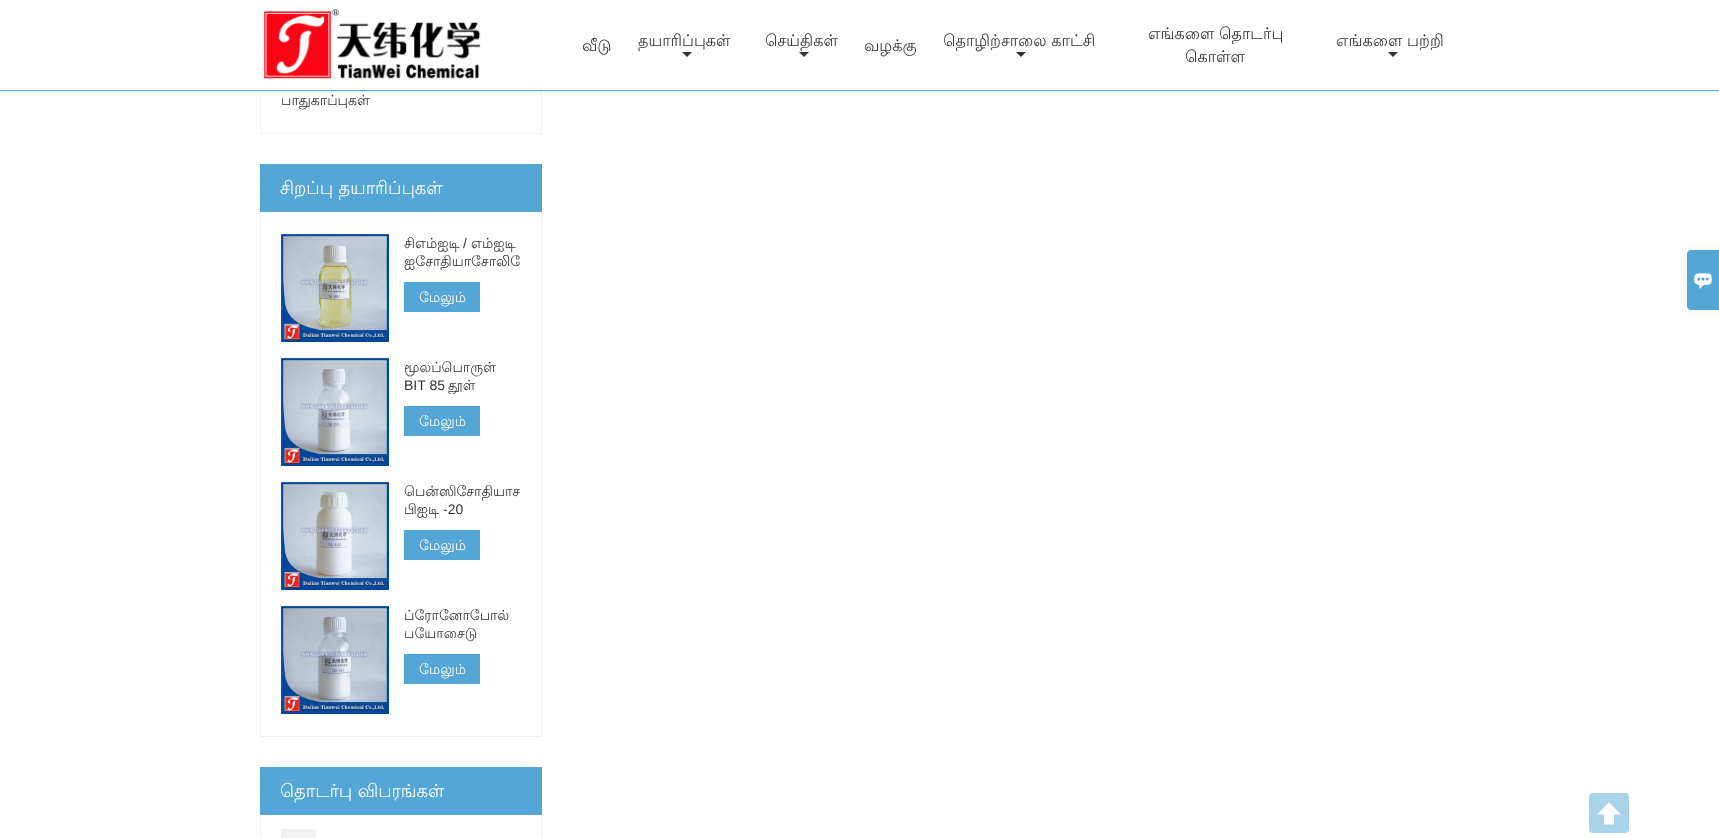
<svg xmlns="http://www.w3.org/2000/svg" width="1719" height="838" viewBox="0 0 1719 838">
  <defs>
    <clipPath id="clip1"><rect x="404" y="234" width="117" height="36"/></clipPath>
    <clipPath id="clip2"><rect x="404" y="358" width="117" height="36"/></clipPath>
  </defs>
  <rect width="100%" height="100%" fill="rgb(255,255,255)"/>
  <rect x="0" y="90" width="1719" height="1" fill="rgb(83,166,213)"/>
  <image x="264" y="9" width="217" height="70" href="pic1.png"/>
  <g font-family="Lohit Tamil" font-size="16" fill="rgb(51,51,51)">
    <text x="582" y="51">வீடு</text>
    <text x="638" y="46">தயாரிப்புகள்</text>
  </g>
  <path d="M682 52H692L687 57Z" fill="rgb(51,51,51)"/>
  <text x="765" y="46" font-family="Lohit Tamil" font-size="16" fill="rgb(51,51,51)">செய்திகள்</text>
  <path d="M799 52H809L804 57Z" fill="rgb(51,51,51)"/>
  <g font-family="Lohit Tamil" font-size="16" fill="rgb(51,51,51)">
    <text x="864" y="51">வழக்கு</text>
    <text x="943" y="46">தொழிற்சாலை காட்சி</text>
  </g>
  <path d="M1016 52H1026L1021 57Z" fill="rgb(51,51,51)"/>
  <g font-family="Lohit Tamil" font-size="16" fill="rgb(51,51,51)">
    <text x="1148" y="39">எங்களை தொடர்பு</text>
    <text x="1185" y="62">கொள்ள</text>
    <text x="1336" y="46">எங்களை பற்றி</text>
  </g>
  <path d="M1388 52H1398L1393 57Z" fill="rgb(51,51,51)"/>
  <rect x="541" y="91" width="1" height="43" fill="rgb(241,241,241)"/>
  <rect x="260" y="133" width="282" height="1" fill="rgb(241,241,241)"/>
  <rect x="260" y="91" width="1" height="43" fill="rgb(241,241,241)"/>
  <text x="281" y="105" font-family="Lohit Tamil" font-size="14" fill="rgb(51,51,51)">பாதுகாப்புகள்</text>
  <rect x="260" y="164" width="282" height="48" fill="rgb(83,166,213)"/>
  <text x="280" y="194" font-family="Lohit Tamil" font-size="18" fill="rgb(255,255,255)">சிறப்பு தயாரிப்புகள்</text>
  <rect x="541" y="212" width="1" height="525" fill="rgb(241,241,241)"/>
  <rect x="260" y="736" width="282" height="1" fill="rgb(241,241,241)"/>
  <rect x="260" y="212" width="1" height="525" fill="rgb(241,241,241)"/>
  <image x="281" y="234" width="108" height="108" href="pic2.png"/>
  <text x="404" y="248" font-family="Lohit Tamil" font-size="14" fill="rgb(51,51,51)">சிஎம்ஐடி</text>
  <text x="463" y="248" font-family="Liberation Sans" font-size="14" fill="rgb(51,51,51)">/</text>
  <text x="471" y="248" font-family="Lohit Tamil" font-size="14" fill="rgb(51,51,51)">எம்ஐடி</text>
  <g clip-path="url(#clip1)">
    <text x="404" y="266" font-family="Lohit Tamil" font-size="14" fill="rgb(51,51,51)">ஐசோதியாசோலினோ</text>
  </g>
  <rect x="404" y="282" width="76" height="30" fill="rgb(83,166,213)"/>
  <text x="419" y="302" font-family="Lohit Tamil" font-size="14" fill="rgb(255,255,255)">மேலும்</text>
  <image x="281" y="358" width="108" height="108" href="pic3.png"/>
  <text x="404" y="372" font-family="Lohit Tamil" font-size="14" fill="rgb(51,51,51)">மூலப்பொருள்</text>
  <text x="404" y="390" font-family="Liberation Sans" font-size="14" fill="rgb(51,51,51)">BIT 85</text>
  <g clip-path="url(#clip2)">
    <text x="448" y="390" font-family="Lohit Tamil" font-size="14" fill="rgb(51,51,51)">தூள்</text>
  </g>
  <rect x="404" y="406" width="76" height="30" fill="rgb(83,166,213)"/>
  <text x="419" y="426" font-family="Lohit Tamil" font-size="14" fill="rgb(255,255,255)">மேலும்</text>
  <image x="281" y="482" width="108" height="108" href="pic4.png"/>
  <g font-family="Lohit Tamil" font-size="14" fill="rgb(51,51,51)">
    <text>
      <tspan x="404" y="496">பென்ஸிசோதியாச</tspan>
      <tspan x="404" y="514">பிஐடி</tspan>
    </text>
  </g>
  <text x="443" y="514" font-family="Liberation Sans" font-size="14" fill="rgb(51,51,51)">-20</text>
  <rect x="404" y="530" width="76" height="30" fill="rgb(83,166,213)"/>
  <text x="419" y="550" font-family="Lohit Tamil" font-size="14" fill="rgb(255,255,255)">மேலும்</text>
  <image x="281" y="606" width="108" height="108" href="pic5.png"/>
  <g font-family="Lohit Tamil" font-size="14" fill="rgb(51,51,51)">
    <text>
      <tspan x="404" y="620">ப்ரோனோபோல்</tspan>
      <tspan x="404" y="638">பயோசைடு</tspan>
    </text>
  </g>
  <rect x="404" y="654" width="76" height="30" fill="rgb(83,166,213)"/>
  <text x="419" y="674" font-family="Lohit Tamil" font-size="14" fill="rgb(255,255,255)">மேலும்</text>
  <rect x="260" y="767" width="282" height="48" fill="rgb(83,166,213)"/>
  <text x="280" y="797" font-family="Lohit Tamil" font-size="18" fill="rgb(255,255,255)">தொடர்பு விபரங்கள்</text>
  <rect x="541" y="815" width="1" height="23" fill="rgb(241,241,241)"/>
  <rect x="260" y="815" width="1" height="23" fill="rgb(241,241,241)"/>
  <rect x="281" y="829" width="35" height="9" fill="rgb(241,241,241)"/>
  <rect x="1687" y="250" width="32" height="60" rx="4" fill="rgb(234,240,246)" filter="blur(4px)"/>
  <path d="M1691 250H1719V310H1691C1689 310 1687 308 1687 306V254C1687 252 1689 250 1691 250Z" fill="rgb(83,166,213)"/>
  <image x="1694" y="273" width="18" height="16" href="pic6.png"/>
  <rect x="1589" y="793" width="40" height="40" rx="4" fill="rgb(169,211,234)"/>
  <path d="M1621 814.5L1609 802.5L1597 814.5H1604V824.5H1614V814.5Z" fill="rgb(255,255,255)"/>
</svg>
